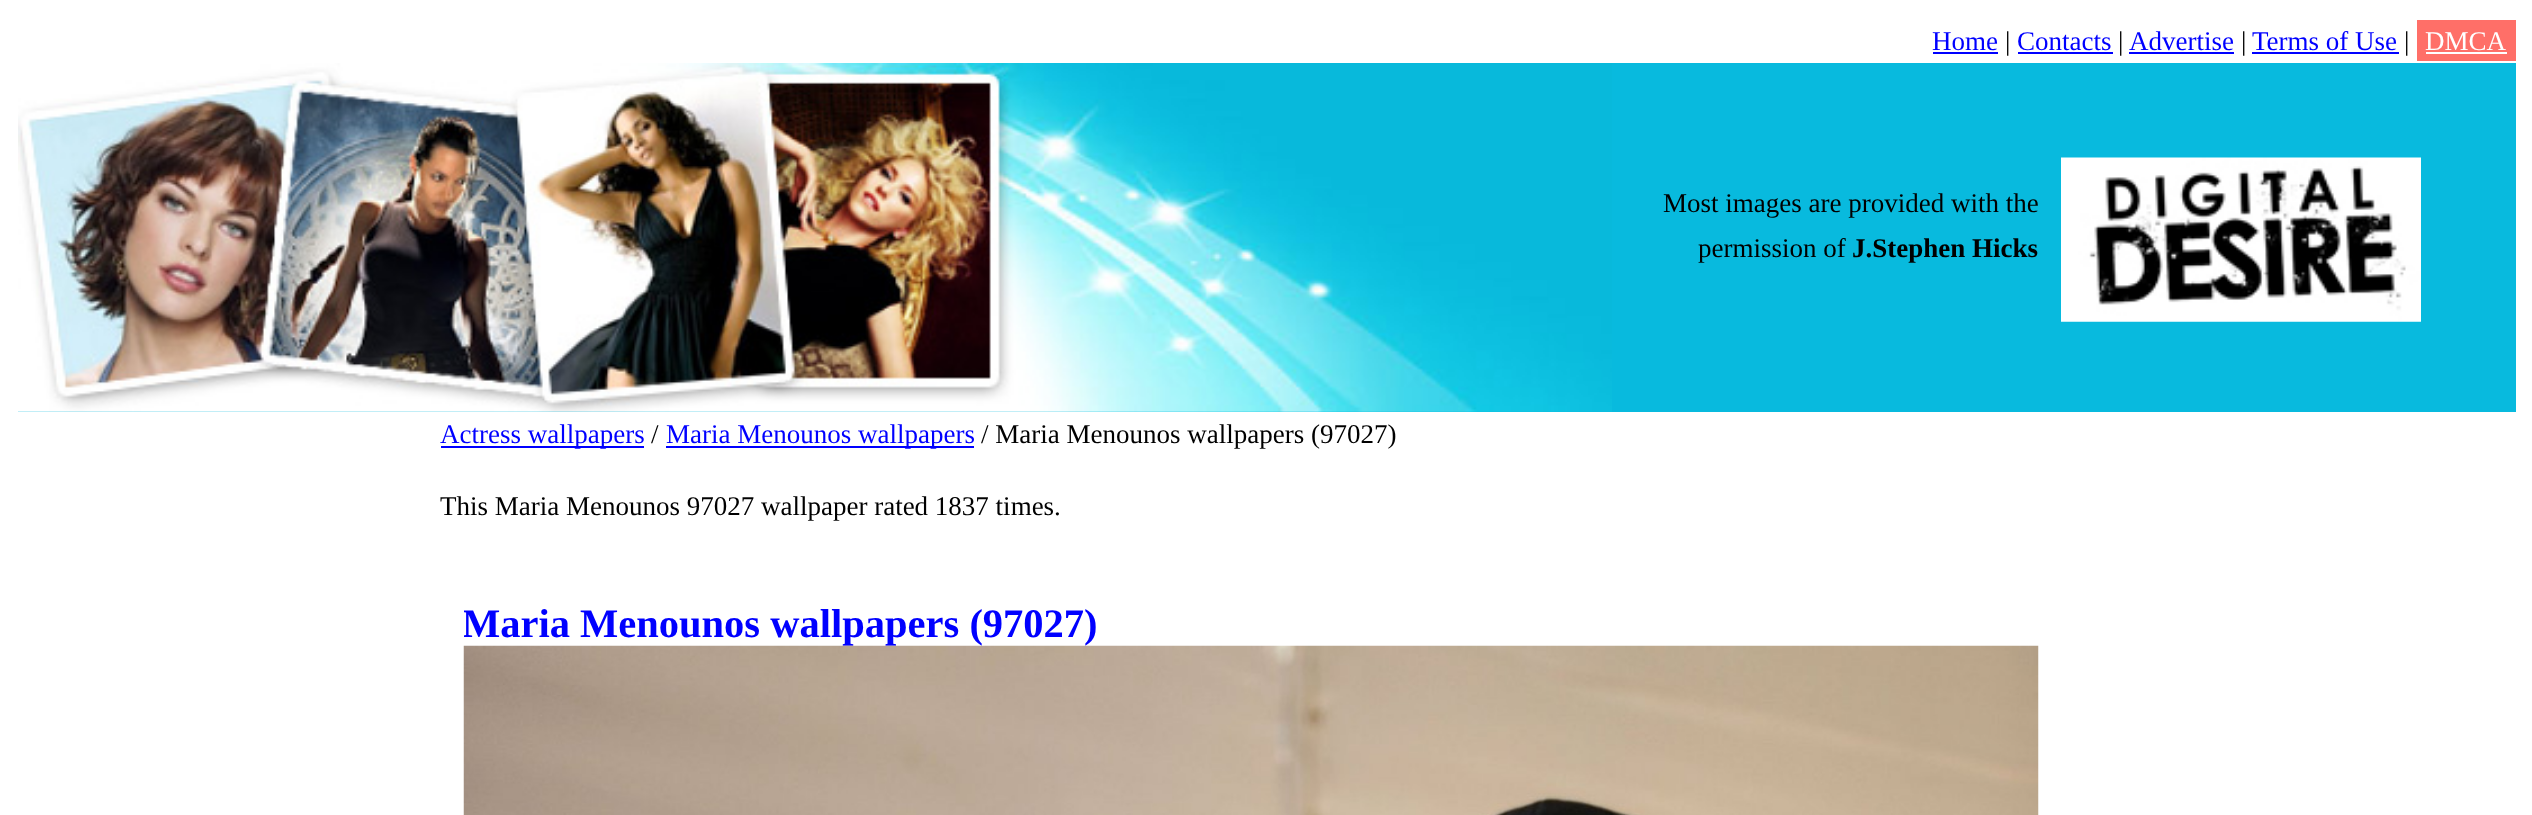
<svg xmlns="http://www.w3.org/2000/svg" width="2532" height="815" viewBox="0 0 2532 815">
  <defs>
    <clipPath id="clip1"><rect x="464" y="578" width="1575" height="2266"/></clipPath>
  </defs>
  <rect width="100%" height="100%" fill="rgb(255,255,255)"/>
  <text x="1932" y="50" font-family="Liberation Serif" font-size="27" fill="rgb(0,0,255)">Home</text>
  <rect x="1933" y="52" width="65" height="2" fill="rgb(0,0,255)"/>
  <text x="2005" y="50" font-family="Liberation Serif" font-size="27" fill="rgb(0,0,0)">|</text>
  <text x="2017" y="50" font-family="Liberation Serif" font-size="27" fill="rgb(0,0,255)">Contacts</text>
  <rect x="2018" y="52" width="95" height="2" fill="rgb(0,0,255)"/>
  <text x="2118" y="50" font-family="Liberation Serif" font-size="27" fill="rgb(0,0,0)">|</text>
  <text x="2129" y="50" font-family="Liberation Serif" font-size="27" fill="rgb(0,0,255)">Advertise</text>
  <rect x="2129" y="52" width="105" height="2" fill="rgb(0,0,255)"/>
  <text x="2241" y="50" font-family="Liberation Serif" font-size="27" fill="rgb(0,0,0)">|</text>
  <text x="2252" y="50" font-family="Liberation Serif" font-size="27" fill="rgb(0,0,255)">Terms of Use</text>
  <rect x="2252" y="52" width="147" height="2" fill="rgb(0,0,255)"/>
  <text x="2404" y="50" font-family="Liberation Serif" font-size="27" fill="rgb(0,0,0)">|</text>
  <rect x="2417" y="20" width="99" height="41" fill="rgb(255,111,104)"/>
  <text x="2425" y="50" font-family="Liberation Serif" font-size="27" fill="rgb(255,255,255)">DMCA</text>
  <rect x="2426" y="52" width="81" height="2" fill="rgb(255,255,255)"/>
  <rect x="18" y="63" width="2498" height="349" fill="rgb(8,186,222)"/>
  <image x="18" y="63" width="1594" height="349" href="pic1.png"/>
  <g font-family="Liberation Serif" font-size="27" fill="rgb(0,0,0)">
    <text x="1663" y="212">Most images are provided with the</text>
    <text x="1698" y="257">permission of</text>
  </g>
  <text x="1852" y="257" font-family="Liberation Serif" font-size="27" font-weight="bold" fill="rgb(0,0,0)">J.Stephen Hicks</text>
  <image x="2061" y="157" width="360" height="165" href="pic2.png"/>
  <rect x="441" y="446" width="203" height="2" fill="rgb(0,0,255)"/>
  <text x="440" y="443" font-family="Liberation Serif" font-size="27" fill="rgb(0,0,255)">Actress wallpapers</text>
  <text x="651" y="443" font-family="Liberation Serif" font-size="27" fill="rgb(0,0,0)">/</text>
  <rect x="666" y="446" width="308" height="2" fill="rgb(0,0,255)"/>
  <text x="666" y="443" font-family="Liberation Serif" font-size="27" fill="rgb(0,0,255)">Maria Menounos wallpapers</text>
  <g font-family="Liberation Serif" font-size="27" fill="rgb(0,0,0)">
    <text x="981" y="443">/ Maria Menounos wallpapers (97027)</text>
    <text x="440" y="515">This Maria Menounos 97027 wallpaper rated 1837 times.</text>
  </g>
  <g clip-path="url(#clip1)">
    <text x="462" y="637" font-family="Liberation Serif" font-size="40.5" font-weight="bold" fill="rgb(0,0,255)">Maria Menounos wallpapers (97027)</text>
  </g>
  <image x="463" y="645" width="1576" height="170" href="pic3.png"/>
</svg>
